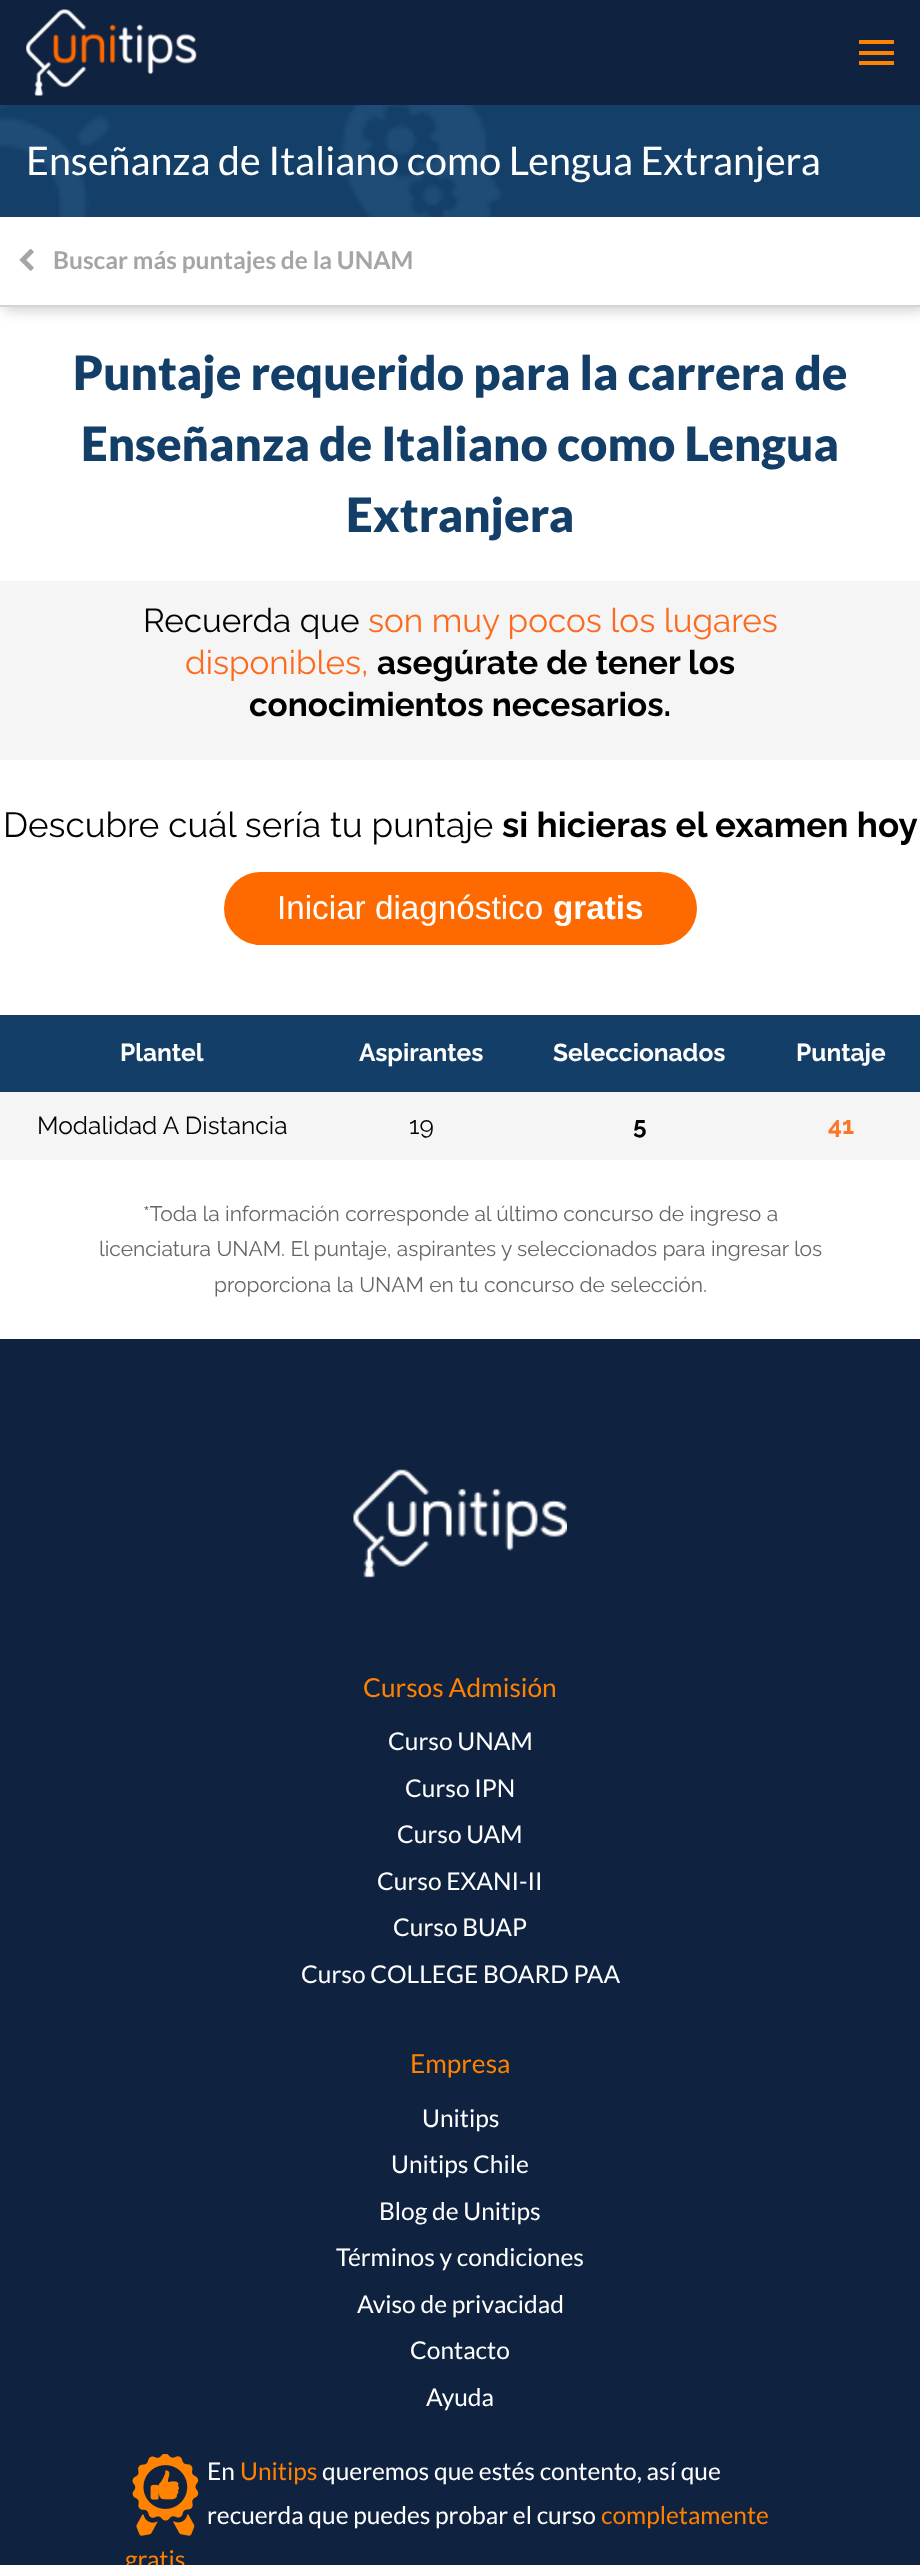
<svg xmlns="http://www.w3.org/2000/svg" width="920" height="2565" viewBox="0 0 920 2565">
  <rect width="100%" height="100%" fill="rgb(255,255,255)"/>
  <rect x="0" y="0" width="920" height="105" fill="rgb(15,34,64)"/>
  <image x="26" y="9" width="171" height="87" href="pic1.png"/>
  <rect x="859" y="40" width="35" height="4" fill="rgb(255,131,0)"/>
  <rect x="859" y="51" width="35" height="4" fill="rgb(255,131,0)"/>
  <rect x="859" y="61" width="35" height="4" fill="rgb(255,131,0)"/>
  <rect x="4" y="221" width="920" height="89" fill="rgba(0,0,0,0.2)" filter="blur(7px)"/>
  <image x="0" y="105" width="920" height="112" href="pic2.png"/>
  <text x="26" y="175" font-family="Lato" font-size="39.4" fill="rgb(255,255,255)">Enseñanza de Italiano como Lengua Extranjera</text>
  <rect x="0" y="217" width="920" height="88" fill="rgb(255,255,255)"/>
  <rect x="0" y="305" width="920" height="2" fill="rgb(212,212,212)"/>
  <image x="19" y="248" width="15" height="23" href="pic3.png"/>
  <text x="53" y="269" font-family="Lato" font-size="24.5" font-weight="bold" fill="rgb(165,165,165)">Buscar más puntajes de la UNAM</text>
  <g font-family="Lato" font-size="47.25" font-weight="900" fill="rgb(19,62,104)">
    <text x="73" y="390">Puntaje requerido para la carrera de</text>
    <text x="81" y="461">Enseñanza de Italiano como Lengua</text>
    <text x="346" y="532">Extranjera</text>
  </g>
  <rect x="0" y="581" width="920" height="179" fill="rgb(245,245,245)"/>
  <text x="143" y="632" font-family="Raleway" font-size="33.25" fill="rgb(0,0,0)">Recuerda que</text>
  <g font-family="Raleway" font-size="33.25" fill="rgb(254,106,29)">
    <text x="368" y="632">son muy pocos los lugares</text>
    <text x="185" y="674">disponibles,</text>
  </g>
  <g font-family="Raleway" font-size="33.25" font-weight="bold" fill="rgb(0,0,0)">
    <text x="377" y="674">asegúrate de tener los</text>
    <text x="249" y="716">conocimientos necesarios.</text>
  </g>
  <text x="3" y="837" font-family="Raleway" font-size="35" fill="rgb(0,0,0)">Descubre cuál sería tu puntaje</text>
  <text x="502" y="837" font-family="Raleway" font-size="35" font-weight="bold" fill="rgb(0,0,0)">si hicieras el examen hoy</text>
  <rect x="224" y="872" width="473" height="73" rx="36.5" fill="rgb(255,106,0)"/>
  <text x="277" y="919" font-family="Liberation Sans" font-size="33.25" fill="rgb(255,255,255)">Iniciar diagnóstico</text>
  <text x="553" y="919" font-family="Liberation Sans" font-size="33.25" font-weight="bold" fill="rgb(255,255,255)">gratis</text>
  <rect x="0" y="1015" width="920" height="77" fill="rgb(19,62,104)"/>
  <g font-family="Raleway" font-size="24.5" font-weight="bold" fill="rgb(255,255,255)">
    <text x="120" y="1061">Plantel</text>
    <text x="359" y="1061">Aspirantes</text>
    <text x="553" y="1061">Seleccionados</text>
    <text x="796" y="1061">Puntaje</text>
  </g>
  <rect x="0" y="1092" width="920" height="68" fill="rgb(245,245,245)"/>
  <g font-family="Raleway" font-size="24.5" fill="rgb(0,0,0)">
    <text x="37" y="1134">Modalidad A Distancia</text>
    <text x="409" y="1134">19</text>
  </g>
  <text x="633" y="1134" font-family="Raleway" font-size="24.5" font-weight="bold" fill="rgb(0,0,0)">5</text>
  <text x="828" y="1134" font-family="Raleway" font-size="24.5" font-weight="bold" fill="rgb(253,119,41)">41</text>
  <g font-family="Raleway" font-size="21" fill="rgb(102,102,102)">
    <text x="143" y="1221">*Toda la información corresponde al último concurso de ingreso a</text>
    <text x="99" y="1256">licenciatura UNAM. El puntaje, aspirantes y seleccionados para ingresar los</text>
    <text x="214" y="1292">proporciona la UNAM en tu concurso de selección.</text>
  </g>
  <rect x="0" y="1339" width="920" height="1226" fill="rgb(15,34,64)"/>
  <image x="353" y="1469" width="214" height="109" href="pic4.png"/>
  <text x="363" y="1697" font-family="Lato" font-size="26.25" fill="rgb(254,129,0)">Cursos Admisión</text>
  <g font-family="Lato" font-size="24.5" fill="rgb(255,255,255)">
    <text x="388" y="1750">Curso UNAM</text>
    <text x="405" y="1797">Curso IPN</text>
    <text x="397" y="1843">Curso UAM</text>
    <text x="377" y="1890">Curso EXANI-II</text>
    <text x="393" y="1936">Curso BUAP</text>
    <text x="301" y="1983">Curso COLLEGE BOARD PAA</text>
  </g>
  <text x="410" y="2073" font-family="Lato" font-size="26.25" fill="rgb(254,129,0)">Empresa</text>
  <g font-family="Lato" font-size="24.5" fill="rgb(255,255,255)">
    <text x="422" y="2127">Unitips</text>
    <text x="391" y="2173">Unitips Chile</text>
    <text x="379" y="2220">Blog de Unitips</text>
    <text x="336" y="2266">Términos y condiciones</text>
    <text x="357" y="2313">Aviso de privacidad</text>
    <text x="410" y="2359">Contacto</text>
    <text x="426" y="2406">Ayuda</text>
  </g>
  <image x="132" y="2454" width="67" height="82" href="pic5.png"/>
  <text x="207" y="2480" font-family="Lato" font-size="24.5" fill="rgb(255,255,255)">En</text>
  <text x="240" y="2480" font-family="Lato" font-size="24.5" fill="rgb(254,129,0)">Unitips</text>
  <g font-family="Lato" font-size="24.5" fill="rgb(255,255,255)">
    <text x="322" y="2480">queremos que estés contento, así que</text>
    <text x="207" y="2524">recuerda que puedes probar el curso</text>
  </g>
  <g font-family="Lato" font-size="24.5" fill="rgb(254,129,0)">
    <text x="601" y="2524">completamente</text>
    <text x="125" y="2568">gratis</text>
  </g>
</svg>
